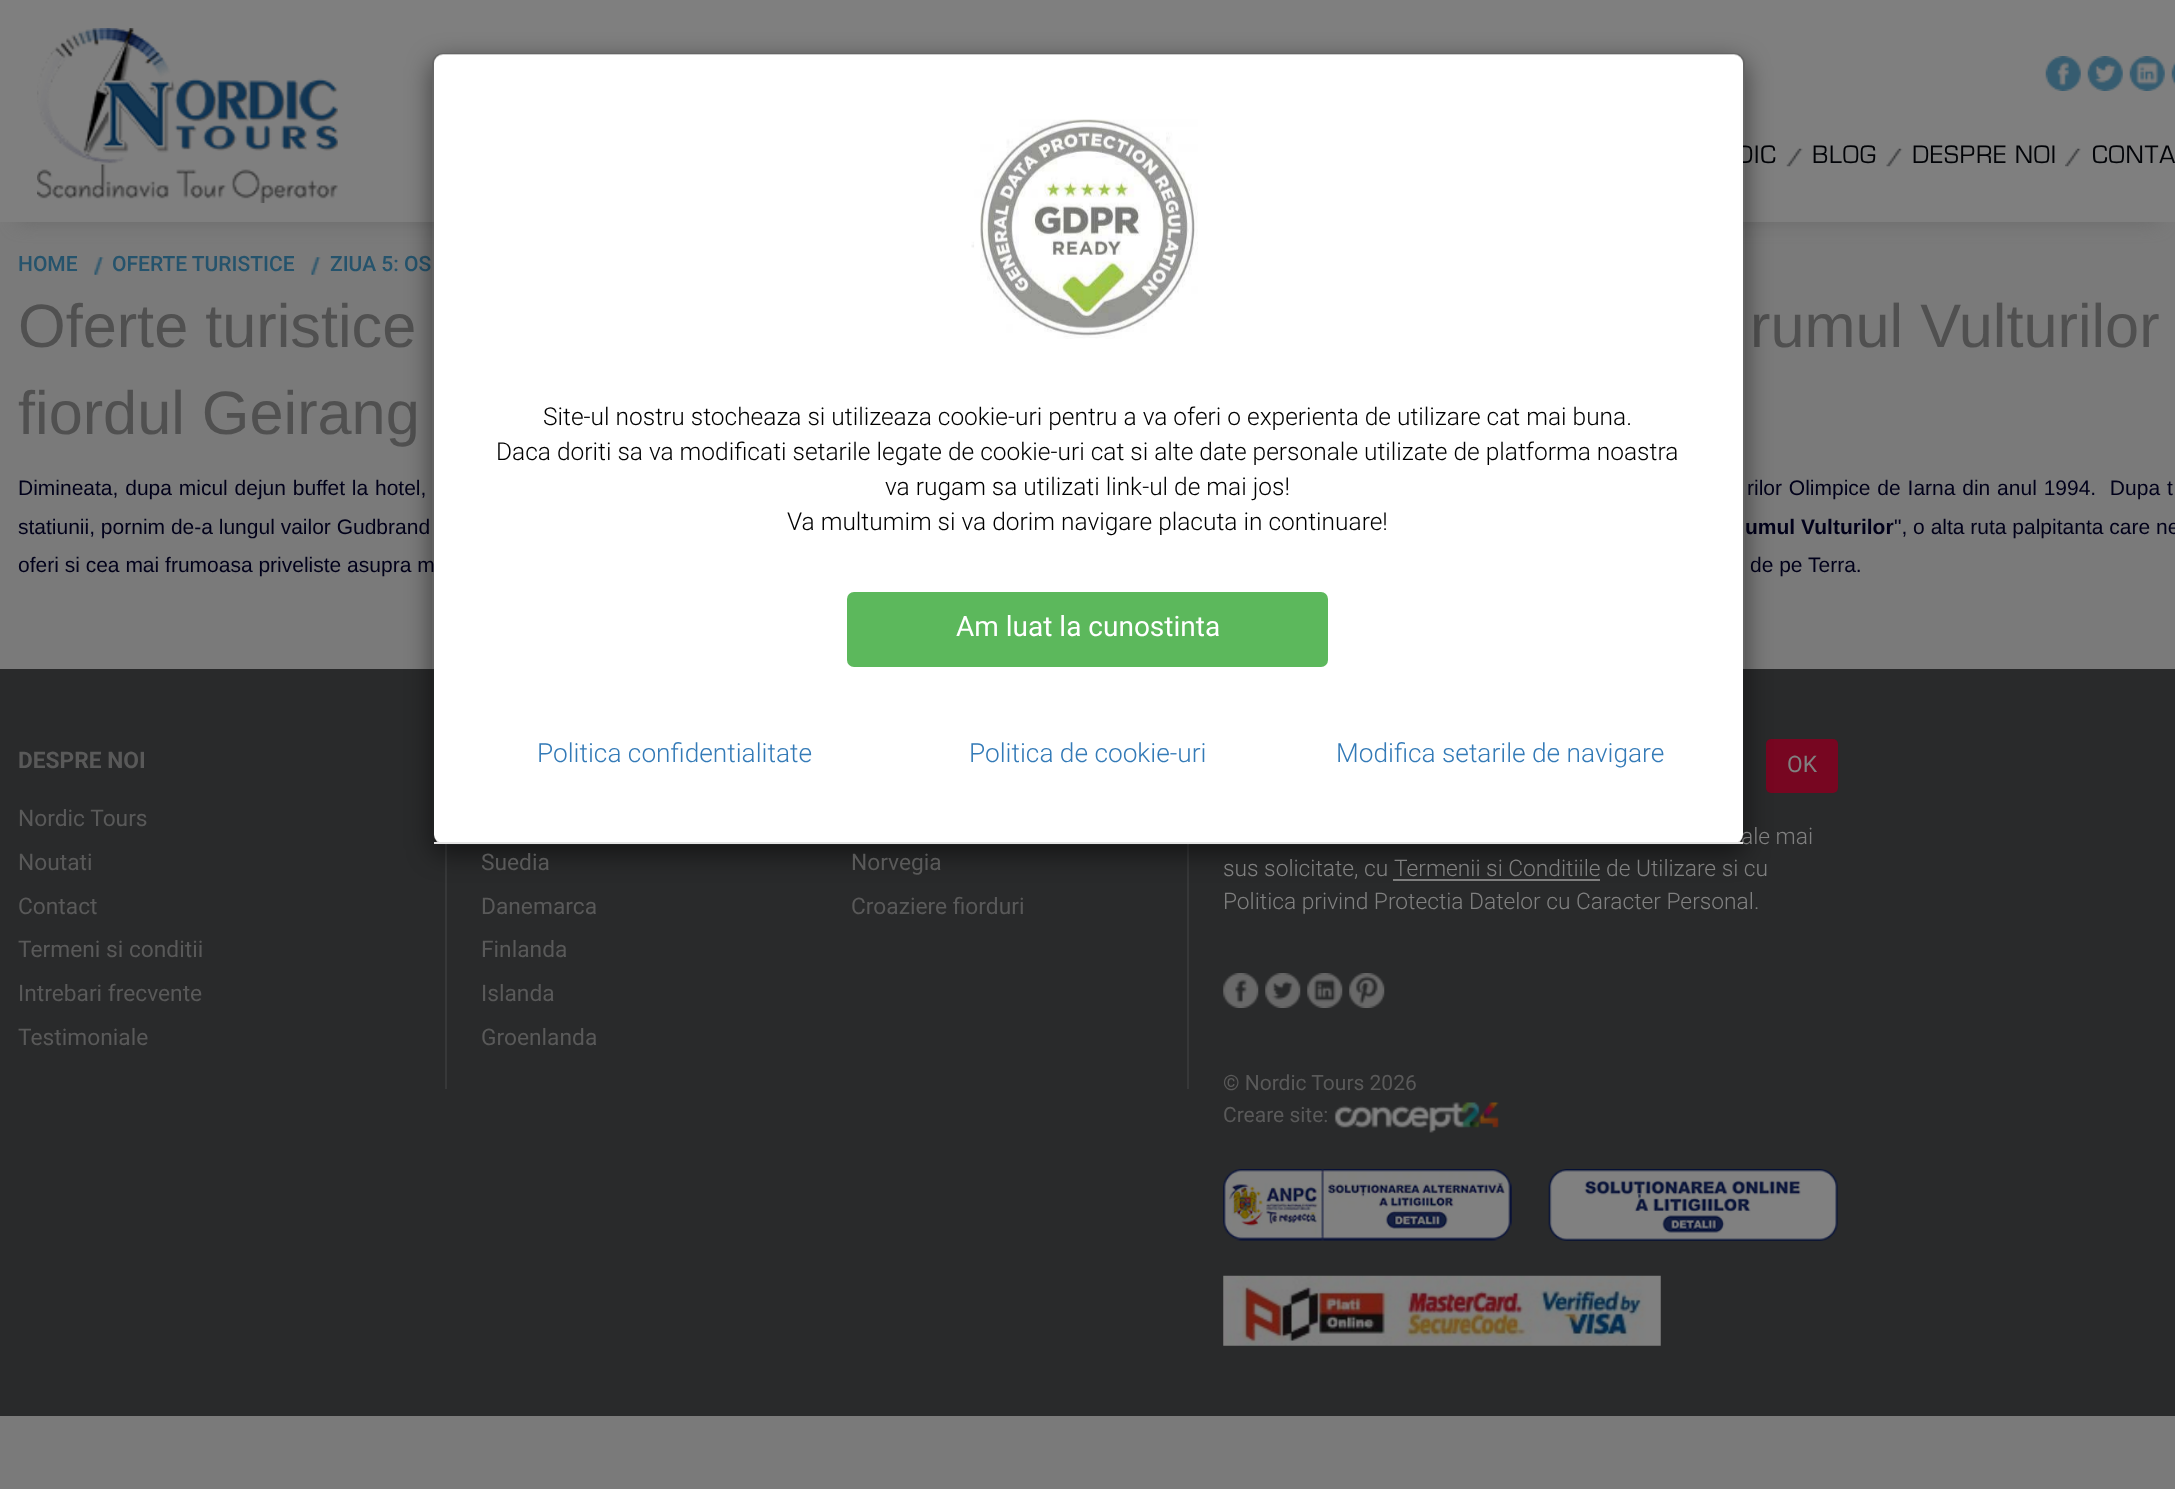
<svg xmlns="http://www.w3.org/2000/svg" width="2175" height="1489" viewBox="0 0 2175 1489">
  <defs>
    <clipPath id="clip1"><path d="M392 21H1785V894H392ZM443 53H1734C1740 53 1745 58 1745 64V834C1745 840 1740 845 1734 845H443C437 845 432 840 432 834V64C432 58 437 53 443 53Z" clip-rule="evenodd"/></clipPath>
  </defs>
  <rect width="100%" height="100%" fill="rgb(122,122,122)"/>
  <rect x="18" y="35" width="2140" height="187" fill="rgb(106,106,106)" filter="blur(9px)"/>
  <rect x="0" y="0" width="2175" height="222" fill="rgb(127,127,127)"/>
  <image x="37" y="28" width="301" height="175" href="pic1.png"/>
  <image x="2045" y="56" width="36" height="35" href="pic2.png"/>
  <image x="2087" y="56" width="36" height="35" href="pic3.png"/>
  <image x="2129" y="56" width="36" height="35" href="pic4.png"/>
  <image x="2171" y="62" width="4" height="23" href="pic5.png"/>
  <text x="1736" y="163" font-family="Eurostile" font-size="26.25" letter-spacing="0.9" fill="rgb(1,3,7)">DIC</text>
  <image x="1786" y="148" width="17" height="19" href="pic6.png"/>
  <text x="1812" y="163" font-family="Eurostile" font-size="26.25" letter-spacing="0.9" fill="rgb(1,3,7)">BLOG</text>
  <image x="1886" y="148" width="17" height="19" href="pic7.png"/>
  <text x="1912" y="163" font-family="Eurostile" font-size="26.25" letter-spacing="0.9" fill="rgb(1,3,7)">DESPRE NOI</text>
  <image x="2065" y="148" width="16" height="19" href="pic8.png"/>
  <text x="2092" y="163" font-family="Eurostile" font-size="26.25" letter-spacing="0.9" fill="rgb(1,3,7)">CONTA</text>
  <text x="18" y="271" font-family="Roboto" font-size="21" font-weight="500" fill="rgb(37,83,108)">HOME</text>
  <image x="94" y="257" width="10" height="18" href="pic9.png"/>
  <text x="112" y="271" font-family="Roboto" font-size="21" font-weight="500" fill="rgb(37,83,108)">OFERTE TURISTICE</text>
  <image x="311" y="257" width="10" height="18" href="pic10.png"/>
  <text x="330" y="271" font-family="Roboto" font-size="21" font-weight="500" fill="rgb(37,83,108)">ZIUA 5: OS</text>
  <g font-family="Liberation Sans" font-size="61.25" fill="rgb(80,80,80)">
    <text x="18" y="347">Oferte turistice</text>
    <text x="1750" y="347">rumul Vulturilor</text>
    <text x="18" y="434">fiordul Geirang</text>
  </g>
  <g font-family="Liberation Sans" font-size="21" fill="rgb(0,0,26)">
    <text x="18" y="495" word-spacing="1">Dimineata, dupa micul dejun buffet la hotel,</text>
    <text x="1747" y="495" word-spacing="1" xml:space="preserve">rilor Olimpice de Iarna din anul 1994.  Dupa t</text>
    <text x="18" y="534">statiunii, pornim de-a lungul vailor Gudbrand</text>
  </g>
  <text x="1745" y="534" font-family="Liberation Sans" font-size="21" font-weight="bold" fill="rgb(0,0,26)">umul Vulturilor</text>
  <g font-family="Liberation Sans" font-size="21" fill="rgb(0,0,26)">
    <text x="1894" y="534">", o alta ruta palpitanta care ne</text>
    <text x="18" y="572">oferi si cea mai frumoasa priveliste asupra m</text>
    <text x="1750" y="572">de pe Terra.</text>
  </g>
  <rect x="0" y="669" width="2175" height="747" fill="rgb(41,42,43)"/>
  <rect x="445" y="844" width="2" height="245" fill="rgb(55,56,57)"/>
  <rect x="1187" y="844" width="2" height="245" fill="rgb(55,56,57)"/>
  <rect x="1766" y="739" width="72" height="54" rx="5" fill="rgb(119,6,33)"/>
  <rect x="1393" y="879" width="207" height="2" fill="rgb(128,128,128)"/>
  <g clip-path="url(#clip1)">
    <rect x="432" y="61" width="1313" height="793" rx="11" fill="rgba(0,0,0,0.5)" filter="blur(13px)"/>
  </g>
  <text x="1741" y="844" font-family="Roboto" font-size="22.75" font-weight="300" fill="rgb(128,128,128)">ale mai</text>
  <rect x="434" y="54" width="1309" height="790" rx="9" fill="rgb(255,255,255)"/>
  <rect x="433" y="54" width="1311" height="790" rx="10" fill="none" stroke="rgba(0,0,0,0.2)" stroke-width="2"/>
  <rect x="434" y="842" width="1309" height="2" fill="rgb(229,229,229)"/>
  <image x="971" y="119" width="227" height="220" href="pic11.png"/>
  <g font-family="Roboto" font-size="24.5" font-weight="300" fill="rgb(0,0,0)">
    <text x="543" y="425">Site-ul nostru stocheaza si utilizeaza cookie-uri pentru a va oferi o experienta de utilizare cat mai buna.</text>
    <text x="496" y="460">Daca doriti sa va modificati setarile legate de cookie-uri cat si alte date personale utilizate de platforma noastra</text>
    <text x="885" y="495">va rugam sa utilizati link-ul de mai jos!</text>
    <text x="787" y="530">Va multumim si va dorim navigare placuta in continuare!</text>
  </g>
  <rect x="847" y="592" width="481" height="75" rx="7" fill="rgb(92,184,92)"/>
  <text x="956" y="636" font-family="Roboto" font-size="28" fill="rgb(255,255,255)">Am luat la cunostinta</text>
  <g font-family="Roboto" font-size="26.25" font-weight="300" fill="rgb(51,122,183)">
    <text x="537" y="762">Politica confidentialitate</text>
    <text x="969" y="762">Politica de cookie-uri</text>
    <text x="1336" y="762">Modifica setarile de navigare</text>
  </g>
  <text x="18" y="768" font-family="Roboto" font-size="22.75" font-weight="bold" fill="rgb(89,89,89)">DESPRE NOI</text>
  <g font-family="Roboto" font-size="22.75" fill="rgb(89,89,89)">
    <text>
      <tspan x="18" y="826">Nordic Tours</tspan>
      <tspan x="18" y="870">Noutati</tspan>
      <tspan x="18" y="914">Contact</tspan>
      <tspan x="18" y="957">Termeni si conditii</tspan>
      <tspan x="18" y="1001">Intrebari frecvente</tspan>
      <tspan x="18" y="1045">Testimoniale</tspan>
    </text>
    <text>
      <tspan x="481" y="870">Suedia</tspan>
      <tspan x="481" y="914">Danemarca</tspan>
      <tspan x="481" y="957">Finlanda</tspan>
      <tspan x="481" y="1001">Islanda</tspan>
      <tspan x="481" y="1045">Groenlanda</tspan>
    </text>
    <text>
      <tspan x="851" y="870">Norvegia</tspan>
      <tspan x="851" y="914">Croaziere fiorduri</tspan>
    </text>
  </g>
  <text x="1787" y="772" font-family="Roboto" font-size="22.75" fill="rgb(128,128,128)">OK</text>
  <g font-family="Roboto" font-size="22.75" font-weight="300" fill="rgb(128,128,128)">
    <text x="1223" y="876">sus solicitate, cu</text>
    <text x="1394" y="876">Termenii si Conditiile de Utilizare si cu</text>
    <text x="1223" y="909">Politica privind Protectia Datelor cu Caracter Personal.</text>
  </g>
  <image x="1223" y="973" width="36" height="35" href="pic12.png"/>
  <image x="1265" y="973" width="36" height="35" href="pic13.png"/>
  <image x="1307" y="973" width="36" height="35" href="pic14.png"/>
  <image x="1349" y="973" width="36" height="35" href="pic15.png"/>
  <g font-family="Roboto" font-size="21" fill="rgb(89,89,89)">
    <text>
      <tspan x="1223" y="1090">© Nordic Tours 2026</tspan>
      <tspan x="1223" y="1122">Creare site:</tspan>
    </text>
  </g>
  <image x="1334" y="1102" width="165" height="31" href="pic16.png"/>
  <image x="1223" y="1169" width="289" height="72" href="pic17.png"/>
  <image x="1548" y="1169" width="290" height="72" href="pic18.png"/>
  <image x="1223" y="1275" width="438" height="71" href="pic19.png"/>
</svg>
